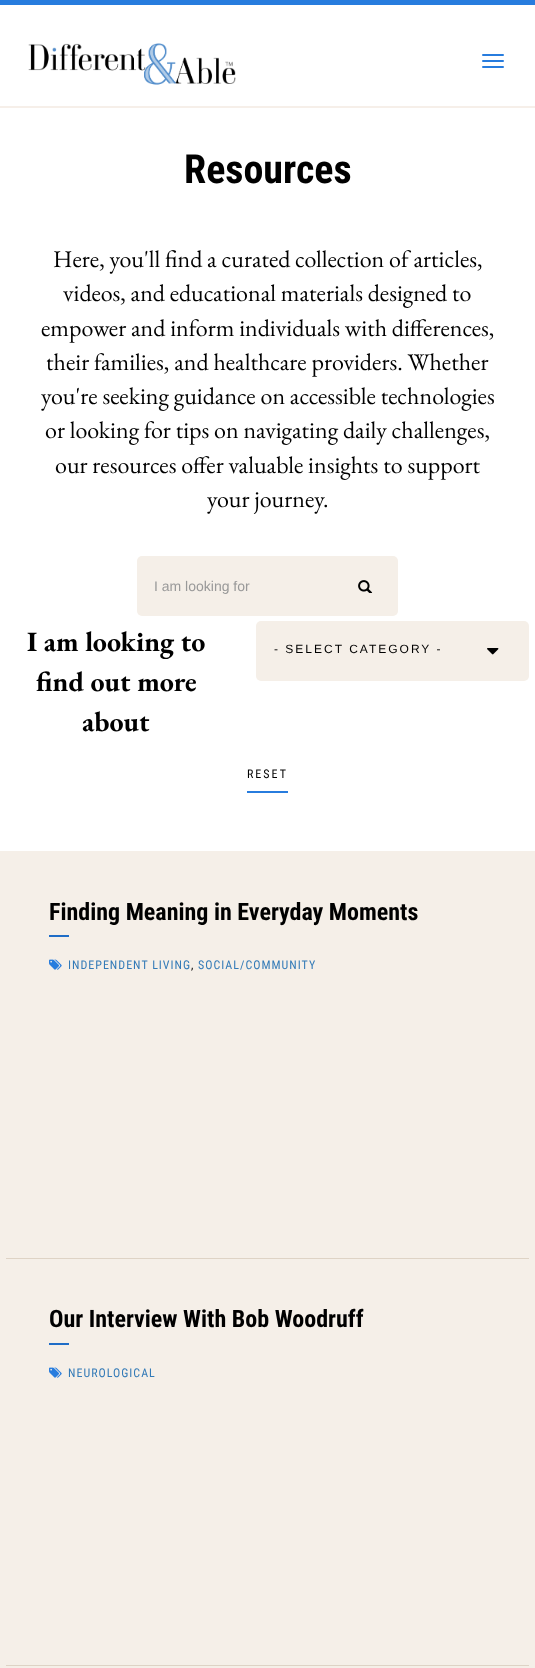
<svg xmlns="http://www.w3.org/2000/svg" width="535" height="1668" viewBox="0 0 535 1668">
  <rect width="100%" height="100%" fill="rgb(255,255,255)"/>
  <rect x="0" y="0" width="535" height="5" fill="rgb(39,124,222)"/>
  <rect x="0" y="106" width="535" height="2" fill="rgb(246,239,233)"/>
  <image x="28" y="43" width="208" height="42" href="pic1.png"/>
  <rect x="482" y="54" width="22" height="2" rx="1" fill="rgb(39,124,222)"/>
  <rect x="482" y="60" width="22" height="2" rx="1" fill="rgb(39,124,222)"/>
  <rect x="482" y="66" width="22" height="2" rx="1" fill="rgb(39,124,222)"/>
  <text x="184" y="183" font-family="Roboto Condensed" font-size="40" font-weight="bold" fill="rgb(0,0,0)">Resources</text>
  <g font-family="EB Garamond" font-size="24" fill="rgb(0,0,0)">
    <text x="53" y="267">Here, you'll find a curated collection of articles,</text>
    <text x="63" y="301">videos, and educational materials designed to</text>
    <text x="41" y="336">empower and inform individuals with differences,</text>
    <text x="46" y="370">their families, and healthcare providers. Whether</text>
    <text x="41" y="404">you're seeking guidance on accessible technologies</text>
    <text x="45" y="438">or looking for tips on navigating daily challenges,</text>
    <text x="55" y="473">our resources offer valuable insights to support</text>
    <text x="207" y="507">your journey.</text>
  </g>
  <rect x="137" y="556" width="261" height="60" rx="5" fill="rgb(245,239,232)"/>
  <text x="154" y="591" font-family="Liberation Sans" font-size="14" fill="rgb(153,153,153)">I am looking for</text>
  <image x="358" y="580" width="15" height="13" href="pic2.png"/>
  <g font-family="EB Garamond" font-size="28" font-weight="bold" fill="rgb(0,0,0)">
    <text x="27" y="651">I am looking to</text>
    <text x="36" y="691">find out more</text>
    <text x="82" y="731">about</text>
  </g>
  <rect x="256" y="621" width="273" height="60" rx="5" fill="rgb(245,239,232)"/>
  <text x="274" y="653" font-family="Liberation Sans" font-size="12" letter-spacing="2" fill="rgb(0,0,0)">- SELECT CATEGORY -</text>
  <image x="487" y="648" width="12" height="7" href="pic3.png"/>
  <text x="247" y="778" font-family="Roboto Condensed" font-size="12" letter-spacing="2" fill="rgb(0,0,0)">RESET</text>
  <rect x="247" y="791" width="41" height="2" fill="rgb(39,124,222)"/>
  <rect x="0" y="851" width="535" height="817" fill="rgb(245,239,232)"/>
  <rect x="6" y="1258" width="523" height="1" fill="rgb(222,211,197)"/>
  <text x="49" y="920" font-family="Roboto Condensed" font-size="24" font-weight="bold" fill="rgb(0,0,0)">Finding Meaning in Everyday Moments</text>
  <rect x="49" y="935" width="20" height="2" fill="rgb(31,109,199)"/>
  <image x="49" y="959" width="13" height="11" href="pic4.png"/>
  <text x="68" y="969" font-family="Roboto Condensed" font-size="12" letter-spacing="1" fill="rgb(51,122,183)">INDEPENDENT LIVING</text>
  <text x="191" y="969" font-family="Roboto Condensed" font-size="12" letter-spacing="1" fill="rgb(0,0,0)">,</text>
  <text x="198" y="969" font-family="Roboto Condensed" font-size="12" letter-spacing="1" fill="rgb(51,122,183)">SOCIAL/COMMUNITY</text>
  <rect x="6" y="1665" width="523" height="1" fill="rgb(222,211,197)"/>
  <text x="49" y="1327" font-family="Roboto Condensed" font-size="24" font-weight="bold" fill="rgb(0,0,0)">Our Interview With Bob Woodruff</text>
  <rect x="49" y="1343" width="20" height="2" fill="rgb(31,109,199)"/>
  <image x="49" y="1367" width="13" height="11" href="pic4.png"/>
  <text x="68" y="1377" font-family="Roboto Condensed" font-size="12" letter-spacing="1" fill="rgb(51,122,183)">NEUROLOGICAL</text>
</svg>
